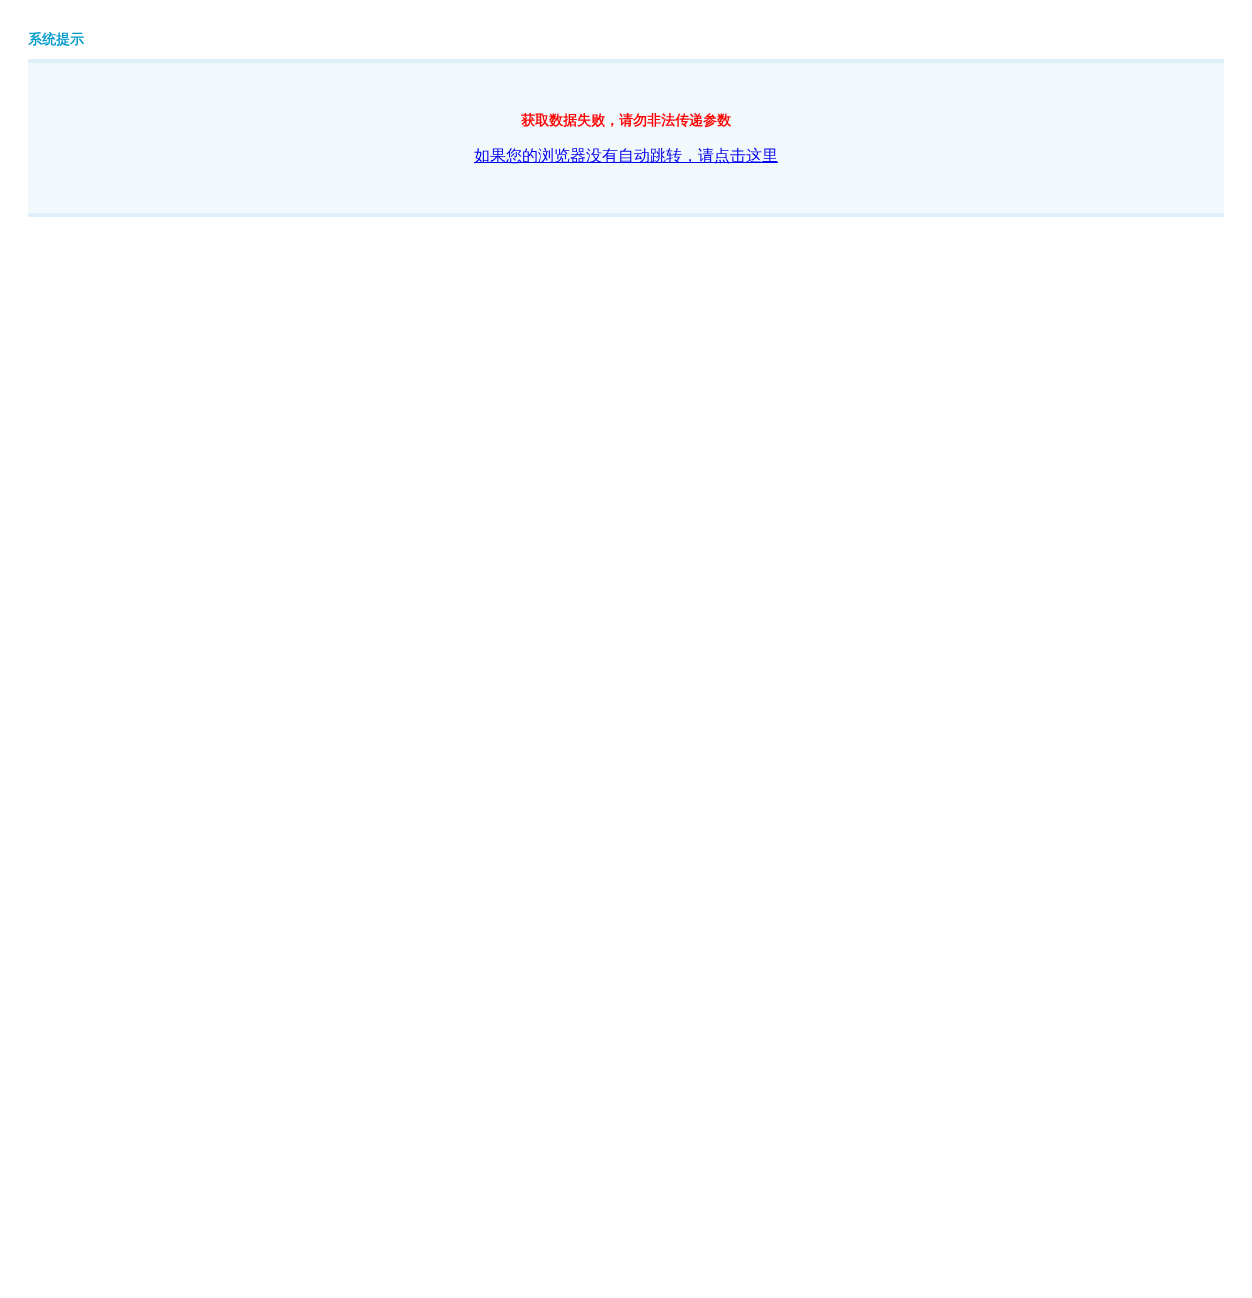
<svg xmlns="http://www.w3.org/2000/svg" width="1252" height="1298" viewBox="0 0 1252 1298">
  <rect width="100%" height="100%" fill="rgb(255,255,255)"/>
  <text x="28" y="44" font-family="WenQuanYi Zen Hei" font-size="14" font-weight="bold" fill="rgb(0,153,204)">系统提示</text>
  <rect x="28" y="63" width="1196" height="150" fill="rgb(242,249,253)"/>
  <rect x="28" y="59" width="1196" height="4" fill="rgb(222,239,250)"/>
  <rect x="28" y="213" width="1196" height="4" fill="rgb(222,238,250)"/>
  <text x="521" y="125" font-family="WenQuanYi Zen Hei" font-size="14" font-weight="bold" fill="rgb(255,0,0)">获取数据失败，请勿非法传递参数</text>
  <rect x="474" y="162" width="304" height="1" fill="rgb(0,0,238)"/>
  <text x="474" y="161" font-family="WenQuanYi Zen Hei" font-size="16" font-weight="500" fill="rgb(0,0,238)">如果您的浏览器没有自动跳转，请点击这里</text>
</svg>
